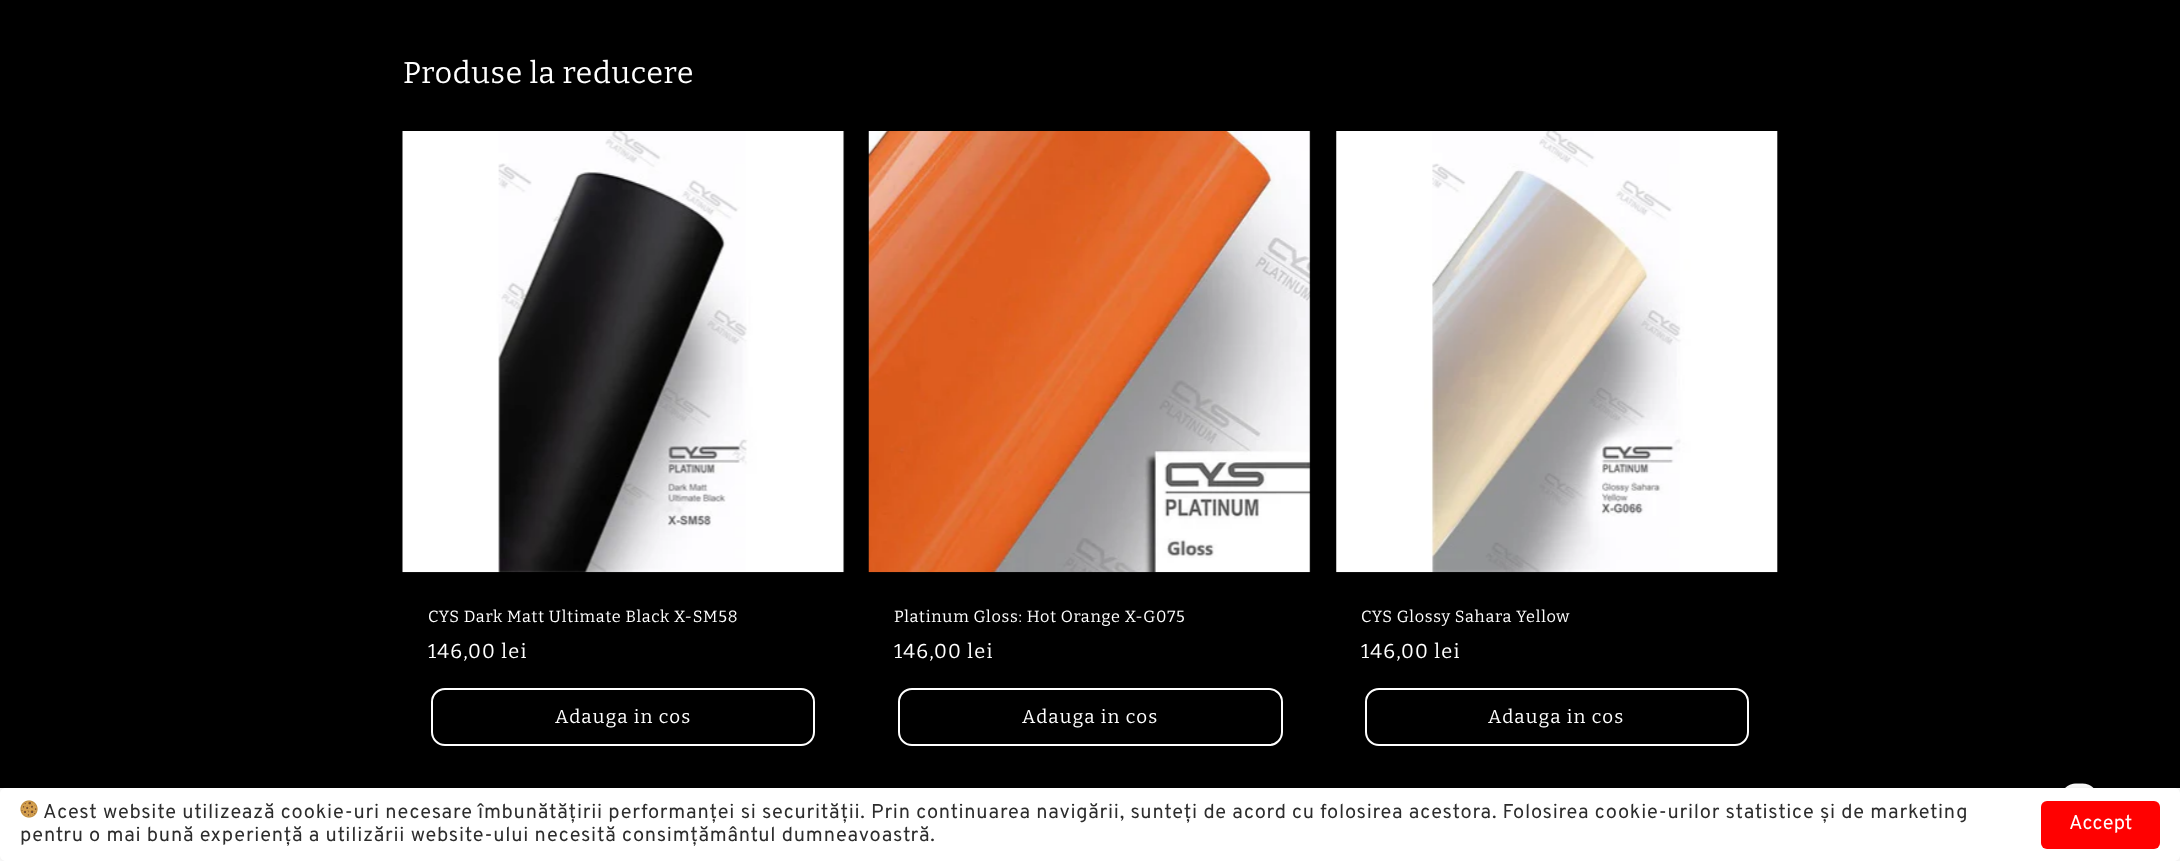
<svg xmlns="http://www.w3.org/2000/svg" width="2180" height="861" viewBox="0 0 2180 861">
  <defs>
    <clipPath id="clip1"><path d="M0 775H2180V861H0ZM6 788H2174C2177.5 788 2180 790.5 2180 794V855C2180 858.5 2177.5 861 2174 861H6C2.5 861 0 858.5 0 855V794C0 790.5 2.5 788 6 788Z" clip-rule="evenodd"/></clipPath>
  </defs>
  <rect width="100%" height="100%" fill="rgb(0,0,0)"/>
  <text x="403" y="83" font-family="Bitter" font-size="30" letter-spacing="0.75" fill="rgb(255,255,255)">Produse la reducere</text>
  <image x="402" y="131" width="443" height="442" href="pic1.png"/>
  <text x="428" y="622" font-family="Bitter" font-size="16.25" letter-spacing="0.75" fill="rgb(255,255,255)">CYS Dark Matt Ultimate Black X-SM58</text>
  <text x="428" y="658" font-family="Bitter" font-size="20" letter-spacing="1.25" fill="rgb(255,255,255)">146,00 lei</text>
  <rect x="432" y="689" width="382" height="56" rx="13" fill="none" stroke="rgb(255,255,255)" stroke-width="2"/>
  <text x="555" y="723" font-family="Bitter" font-size="18.75" letter-spacing="1.25" fill="rgb(255,255,255)">Adauga in cos</text>
  <image x="868" y="131" width="443" height="442" href="pic2.png"/>
  <text x="894" y="622" font-family="Bitter" font-size="16.25" letter-spacing="0.75" fill="rgb(255,255,255)">Platinum Gloss: Hot Orange X-G075</text>
  <text x="894" y="658" font-family="Bitter" font-size="20" letter-spacing="1.25" fill="rgb(255,255,255)">146,00 lei</text>
  <rect x="899" y="689" width="383" height="56" rx="13" fill="none" stroke="rgb(255,255,255)" stroke-width="2"/>
  <text x="1022" y="723" font-family="Bitter" font-size="18.75" letter-spacing="1.25" fill="rgb(255,255,255)">Adauga in cos</text>
  <image x="1336" y="131" width="442" height="442" href="pic3.png"/>
  <text x="1361" y="622" font-family="Bitter" font-size="16.25" letter-spacing="0.75" fill="rgb(255,255,255)">CYS Glossy Sahara Yellow</text>
  <text x="1361" y="658" font-family="Bitter" font-size="20" letter-spacing="1.25" fill="rgb(255,255,255)">146,00 lei</text>
  <rect x="1366" y="689" width="382" height="56" rx="13" fill="none" stroke="rgb(255,255,255)" stroke-width="2"/>
  <text x="1488" y="723" font-family="Bitter" font-size="18.75" letter-spacing="1.25" fill="rgb(255,255,255)">Adauga in cos</text>
  <image x="2060" y="783" width="38" height="5" href="pic4.png"/>
  <rect x="0" y="788" width="2180" height="73" fill="rgb(255,255,255)"/>
  <g clip-path="url(#clip1)">
    <rect x="0" y="788" width="2180" height="73" rx="6" fill="rgba(0,0,0,0.12)" filter="blur(4px)"/>
  </g>
  <image x="20" y="800" width="18" height="18" href="pic5.png"/>
  <g font-family="Overpass" font-size="20" letter-spacing="0.75" fill="rgb(45,45,45)">
    <text x="43" y="818">Acest website utilizează cookie-uri necesare îmbunătățirii performanței si securității. Prin continuarea navigării, sunteți de acord cu folosirea acestora. Folosirea cookie-urilor statistice și de marketing</text>
    <text x="20" y="841">pentru o mai bună experiență a utilizării website-ului necesită consimțământul dumneavoastră.</text>
  </g>
  <rect x="2041" y="801" width="119" height="48" rx="6" fill="rgb(255,1,1)"/>
  <text x="2069" y="829" font-family="Overpass" font-size="20" fill="rgb(255,255,255)">Accept</text>
</svg>
